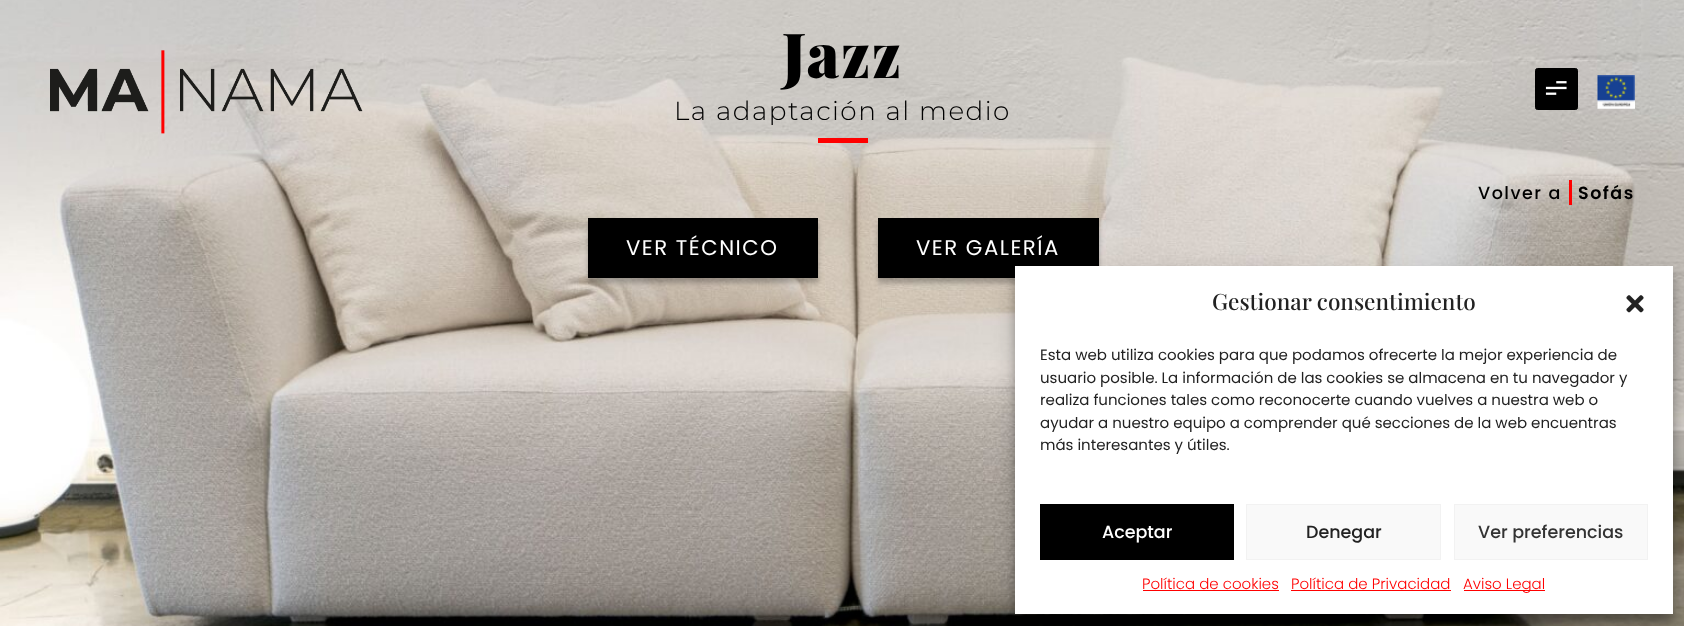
<svg xmlns="http://www.w3.org/2000/svg" width="1684" height="626" viewBox="0 0 1684 626">
  <rect width="100%" height="100%" fill="rgb(255,255,255)"/>
  <image x="0" y="0" width="1684" height="626" href="pic1.png"/>
  <text x="782" y="78" font-family="Playfair Display" font-size="62" font-weight="900" letter-spacing="1.5" fill="rgb(0,0,0)">Jazz</text>
  <text x="674" y="120" font-family="Montserrat" font-size="26.25" font-weight="300" letter-spacing="1.5" fill="rgb(0,0,0)">La adaptación al medio</text>
  <rect x="818" y="138" width="50" height="5" fill="rgb(255,0,0)"/>
  <rect x="588" y="223" width="230" height="60" fill="rgba(0,0,0,0.25)" filter="blur(2.5px)"/>
  <rect x="588" y="218" width="230" height="60" fill="rgb(0,0,0)"/>
  <text x="626" y="255" font-family="Poppins" font-size="21.25" letter-spacing="1.5" fill="rgb(255,255,255)">VER TÉCNICO</text>
  <rect x="878" y="223" width="221" height="60" fill="rgba(0,0,0,0.25)" filter="blur(2.5px)"/>
  <rect x="878" y="218" width="221" height="60" fill="rgb(0,0,0)"/>
  <text x="916" y="255" font-family="Poppins" font-size="21.25" letter-spacing="1.5" fill="rgb(255,255,255)">VER GALERÍA</text>
  <image x="50" y="50" width="313" height="84" href="pic2.png"/>
  <rect x="1535.5" y="68.5" width="42" height="41" rx="2" fill="rgb(0,0,0)" stroke="rgb(0,0,0)"/>
  <image x="1545" y="81" width="22" height="14" href="pic3.png"/>
  <image x="1597" y="75" width="38" height="34" href="pic4.png"/>
  <text x="1478" y="199" font-family="Poppins" font-size="17.5" font-weight="500" letter-spacing="1.5" fill="rgb(0,0,0)">Volver a</text>
  <text x="1578" y="199" font-family="Poppins" font-size="17.5" font-weight="600" letter-spacing="1.5" fill="rgb(0,0,0)">Sofás</text>
  <rect x="1569" y="180" width="3" height="25" fill="rgb(255,0,0)"/>
  <rect x="1015" y="274" width="658" height="347" fill="rgba(0,0,0,0.23)" filter="blur(4px)"/>
  <rect x="1015" y="279" width="658" height="347" fill="rgba(0,0,0,0.19)" filter="blur(12.5px)"/>
  <rect x="1015" y="266" width="658" height="348" fill="rgb(255,255,255)"/>
  <text x="1212" y="310" font-family="Playfair Display" font-size="22.5" font-weight="500" fill="rgb(34,34,34)">Gestionar consentimiento</text>
  <image x="1626" y="295" width="18" height="18" href="pic5.png"/>
  <g font-family="Poppins" font-size="15" fill="rgb(34,34,34)">
    <text>
      <tspan x="1040" y="360">Esta web utiliza cookies para que podamos ofrecerte la mejor experiencia de</tspan>
      <tspan x="1040" y="383">usuario posible. La información de las cookies se almacena en tu navegador y</tspan>
      <tspan x="1040" y="405">realiza funciones tales como reconocerte cuando vuelves a nuestra web o</tspan>
      <tspan x="1040" y="428">ayudar a nuestro equipo a comprender qué secciones de la web encuentras</tspan>
      <tspan x="1040" y="450">más interesantes y útiles.</tspan>
    </text>
  </g>
  <rect x="1040" y="504" width="194" height="56" fill="rgb(0,0,0)"/>
  <text x="1102" y="538" font-family="Poppins" font-size="17.5" font-weight="500" fill="rgb(255,255,255)">Aceptar</text>
  <rect x="1246.5" y="504.5" width="194" height="55" fill="rgb(249,249,249)" stroke="rgb(242,242,242)"/>
  <text x="1306" y="538" font-family="Poppins" font-size="17.5" font-weight="500" fill="rgb(34,34,34)">Denegar</text>
  <rect x="1454.5" y="504.5" width="193" height="55" fill="rgb(249,249,249)" stroke="rgb(242,242,242)"/>
  <text x="1478" y="538" font-family="Poppins" font-size="17.5" font-weight="500" fill="rgb(51,51,51)">Ver preferencias</text>
  <text x="1142" y="589" font-family="Poppins" font-size="15" font-weight="300" fill="rgb(255,0,0)">Política de cookies</text>
  <rect x="1143" y="590" width="136" height="1" fill="rgb(255,0,0)"/>
  <text x="1291" y="589" font-family="Poppins" font-size="15" font-weight="300" fill="rgb(255,0,0)">Política de Privacidad</text>
  <rect x="1291" y="590" width="160" height="1" fill="rgb(255,0,0)"/>
  <rect x="1464" y="590" width="81" height="1" fill="rgb(255,0,0)"/>
  <text x="1463" y="589" font-family="Poppins" font-size="15" font-weight="300" fill="rgb(255,0,0)">Aviso Legal</text>
</svg>
